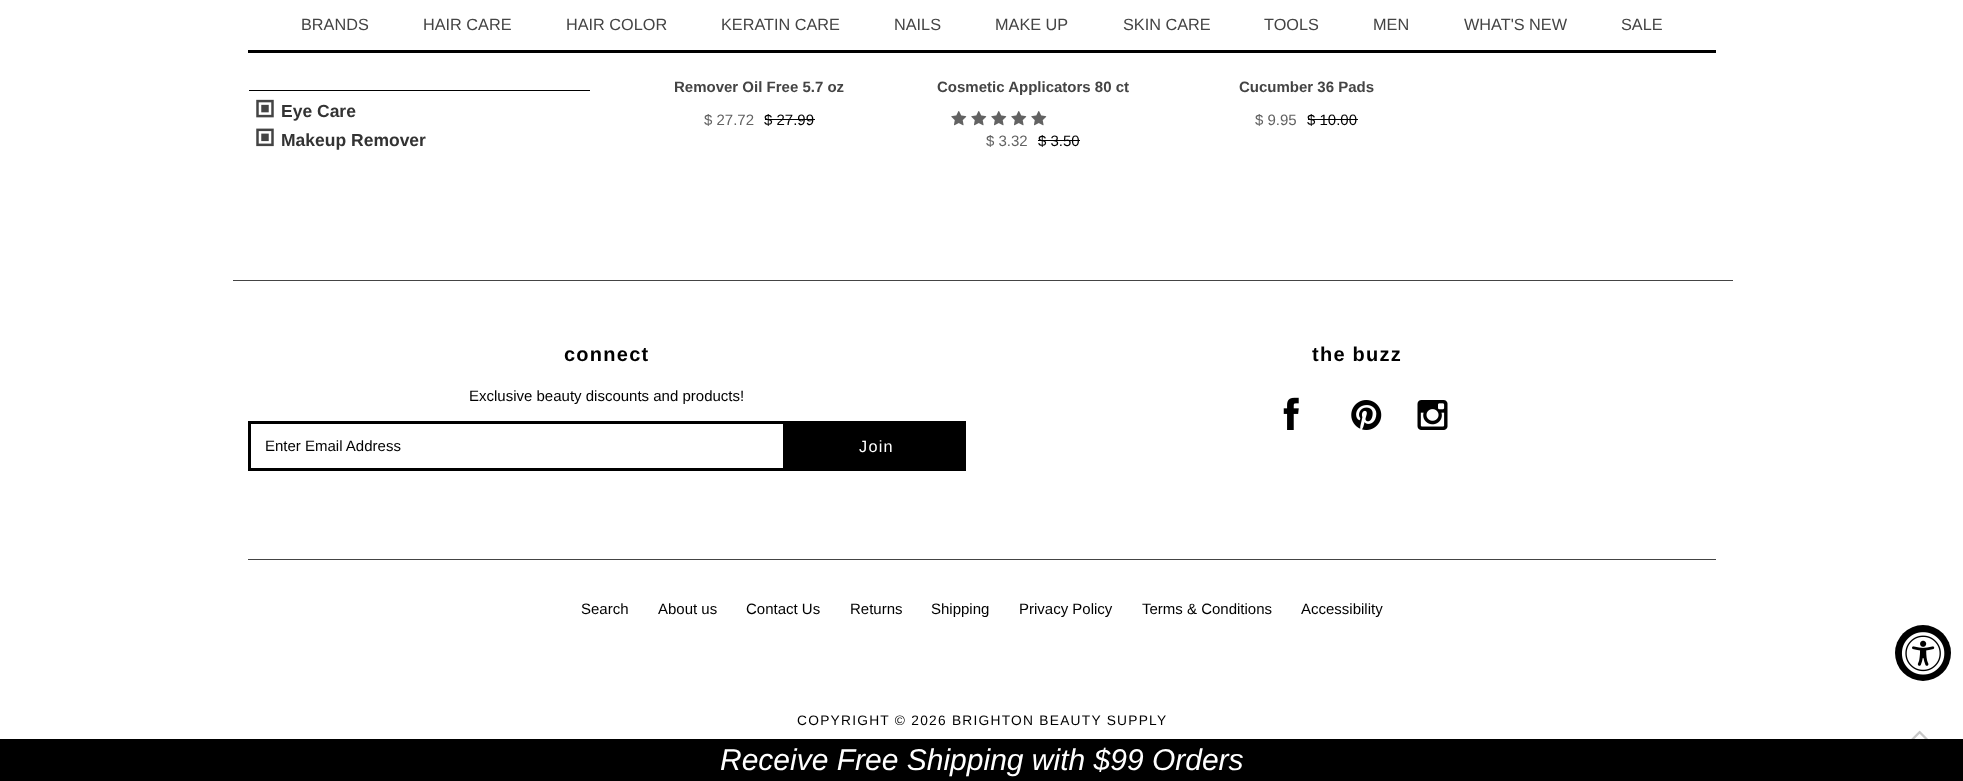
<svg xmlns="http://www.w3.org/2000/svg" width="1963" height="781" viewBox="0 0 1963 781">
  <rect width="100%" height="100%" fill="rgb(255,255,255)"/>
  <rect x="248" y="50" width="1468" height="3" fill="rgb(0,0,0)"/>
  <g font-family="Liberation Sans" font-size="16.25" fill="rgb(68,68,68)">
    <text x="301" y="30">BRANDS</text>
    <text x="423" y="30">HAIR CARE</text>
    <text x="566" y="30">HAIR COLOR</text>
    <text x="721" y="30">KERATIN CARE</text>
    <text x="894" y="30">NAILS</text>
    <text x="995" y="30">MAKE UP</text>
    <text x="1123" y="30">SKIN CARE</text>
    <text x="1264" y="30">TOOLS</text>
    <text x="1373" y="30">MEN</text>
    <text x="1464" y="30">WHAT'S NEW</text>
    <text x="1621" y="30">SALE</text>
  </g>
  <rect x="249" y="90" width="341" height="1" fill="rgb(0,0,0)"/>
  <image x="256" y="99" width="18" height="19" href="pic1.png"/>
  <text x="281" y="117" font-family="Liberation Sans" font-size="17.5" font-weight="bold" fill="rgb(51,51,51)">Eye Care</text>
  <image x="256" y="128" width="18" height="19" href="pic2.png"/>
  <text x="281" y="146" font-family="Liberation Sans" font-size="17.5" font-weight="bold" fill="rgb(51,51,51)">Makeup Remover</text>
  <text x="674" y="92" font-family="Liberation Sans" font-size="15" font-weight="bold" fill="rgb(68,68,68)">Remover Oil Free 5.7 oz</text>
  <text x="704" y="125" font-family="Liberation Sans" font-size="15" fill="rgb(98,98,98)">$ 27.72</text>
  <text x="764" y="125" font-family="Liberation Sans" font-size="15" fill="rgb(0,0,0)">$ 27.99</text>
  <rect x="765" y="119" width="50" height="1" fill="rgb(0,0,0)"/>
  <text x="937" y="92" font-family="Liberation Sans" font-size="15" font-weight="bold" fill="rgb(68,68,68)">Cosmetic Applicators 80 ct</text>
  <image x="951" y="111" width="16" height="15" href="pic3.png"/>
  <image x="971" y="111" width="16" height="15" href="pic3.png"/>
  <image x="991" y="111" width="16" height="15" href="pic3.png"/>
  <image x="1011" y="111" width="16" height="15" href="pic3.png"/>
  <image x="1031" y="111" width="16" height="15" href="pic3.png"/>
  <text x="986" y="146" font-family="Liberation Sans" font-size="15" fill="rgb(98,98,98)">$ 3.32</text>
  <text x="1038" y="146" font-family="Liberation Sans" font-size="15" fill="rgb(0,0,0)">$ 3.50</text>
  <rect x="1038" y="140" width="42" height="1" fill="rgb(0,0,0)"/>
  <text x="1239" y="92" font-family="Liberation Sans" font-size="15" font-weight="bold" fill="rgb(68,68,68)">Cucumber 36 Pads</text>
  <text x="1255" y="125" font-family="Liberation Sans" font-size="15" fill="rgb(98,98,98)">$ 9.95</text>
  <text x="1307" y="125" font-family="Liberation Sans" font-size="15" fill="rgb(0,0,0)">$ 10.00</text>
  <rect x="1308" y="119" width="50" height="1" fill="rgb(0,0,0)"/>
  <rect x="0" y="739" width="1963" height="42" fill="rgb(0,0,0)"/>
  <text x="720" y="770" font-family="Liberation Sans" font-size="30" font-style="italic" fill="rgb(255,255,255)">Receive Free Shipping with $99 Orders</text>
  <rect x="233" y="280" width="1500" height="1" fill="rgb(68,68,68)"/>
  <text x="564" y="361" font-family="Liberation Sans" font-size="20" font-weight="bold" letter-spacing="1.25" fill="rgb(0,0,0)">connect</text>
  <text x="469" y="401" font-family="Liberation Sans" font-size="15" fill="rgb(0,0,0)">Exclusive beauty discounts and products!</text>
  <rect x="249.5" y="422.5" width="535" height="47" fill="none" stroke="rgb(0,0,0)" stroke-width="3"/>
  <text x="265" y="451" font-family="Liberation Sans" font-size="15" fill="rgb(0,0,0)">Enter Email Address</text>
  <rect x="786" y="421" width="180" height="50" fill="rgb(0,0,0)"/>
  <text x="859" y="452" font-family="Liberation Sans" font-size="16.25" letter-spacing="1.25" fill="rgb(255,255,255)">Join</text>
  <text x="1312" y="361" font-family="Liberation Sans" font-size="20" font-weight="bold" letter-spacing="1.25" fill="rgb(0,0,0)">the buzz</text>
  <image x="1283" y="397" width="16" height="33" href="pic4.png"/>
  <image x="1351" y="400" width="31" height="30" href="pic5.png"/>
  <image x="1417" y="400" width="31" height="30" href="pic6.png"/>
  <rect x="248" y="559" width="1468" height="1" fill="rgb(68,68,68)"/>
  <g font-family="Liberation Sans" font-size="15" fill="rgb(0,0,0)">
    <text x="581" y="614">Search</text>
    <text x="658" y="614">About us</text>
    <text x="746" y="614">Contact Us</text>
    <text x="850" y="614">Returns</text>
    <text x="931" y="614">Shipping</text>
    <text x="1019" y="614">Privacy Policy</text>
    <text x="1142" y="614">Terms &amp; Conditions</text>
    <text x="1301" y="614">Accessibility</text>
  </g>
  <text x="797" y="725" font-family="Liberation Sans" font-size="13.75" letter-spacing="1.25" fill="rgb(0,0,0)">COPYRIGHT © 2026 BRIGHTON BEAUTY SUPPLY</text>
  <circle cx="1923" cy="653" r="28" fill="rgb(0,0,0)"/>
  <image x="1901" y="632" width="44" height="43" href="pic7.png"/>
  <image x="1911" y="730" width="17" height="9" href="pic8.png"/>
</svg>
